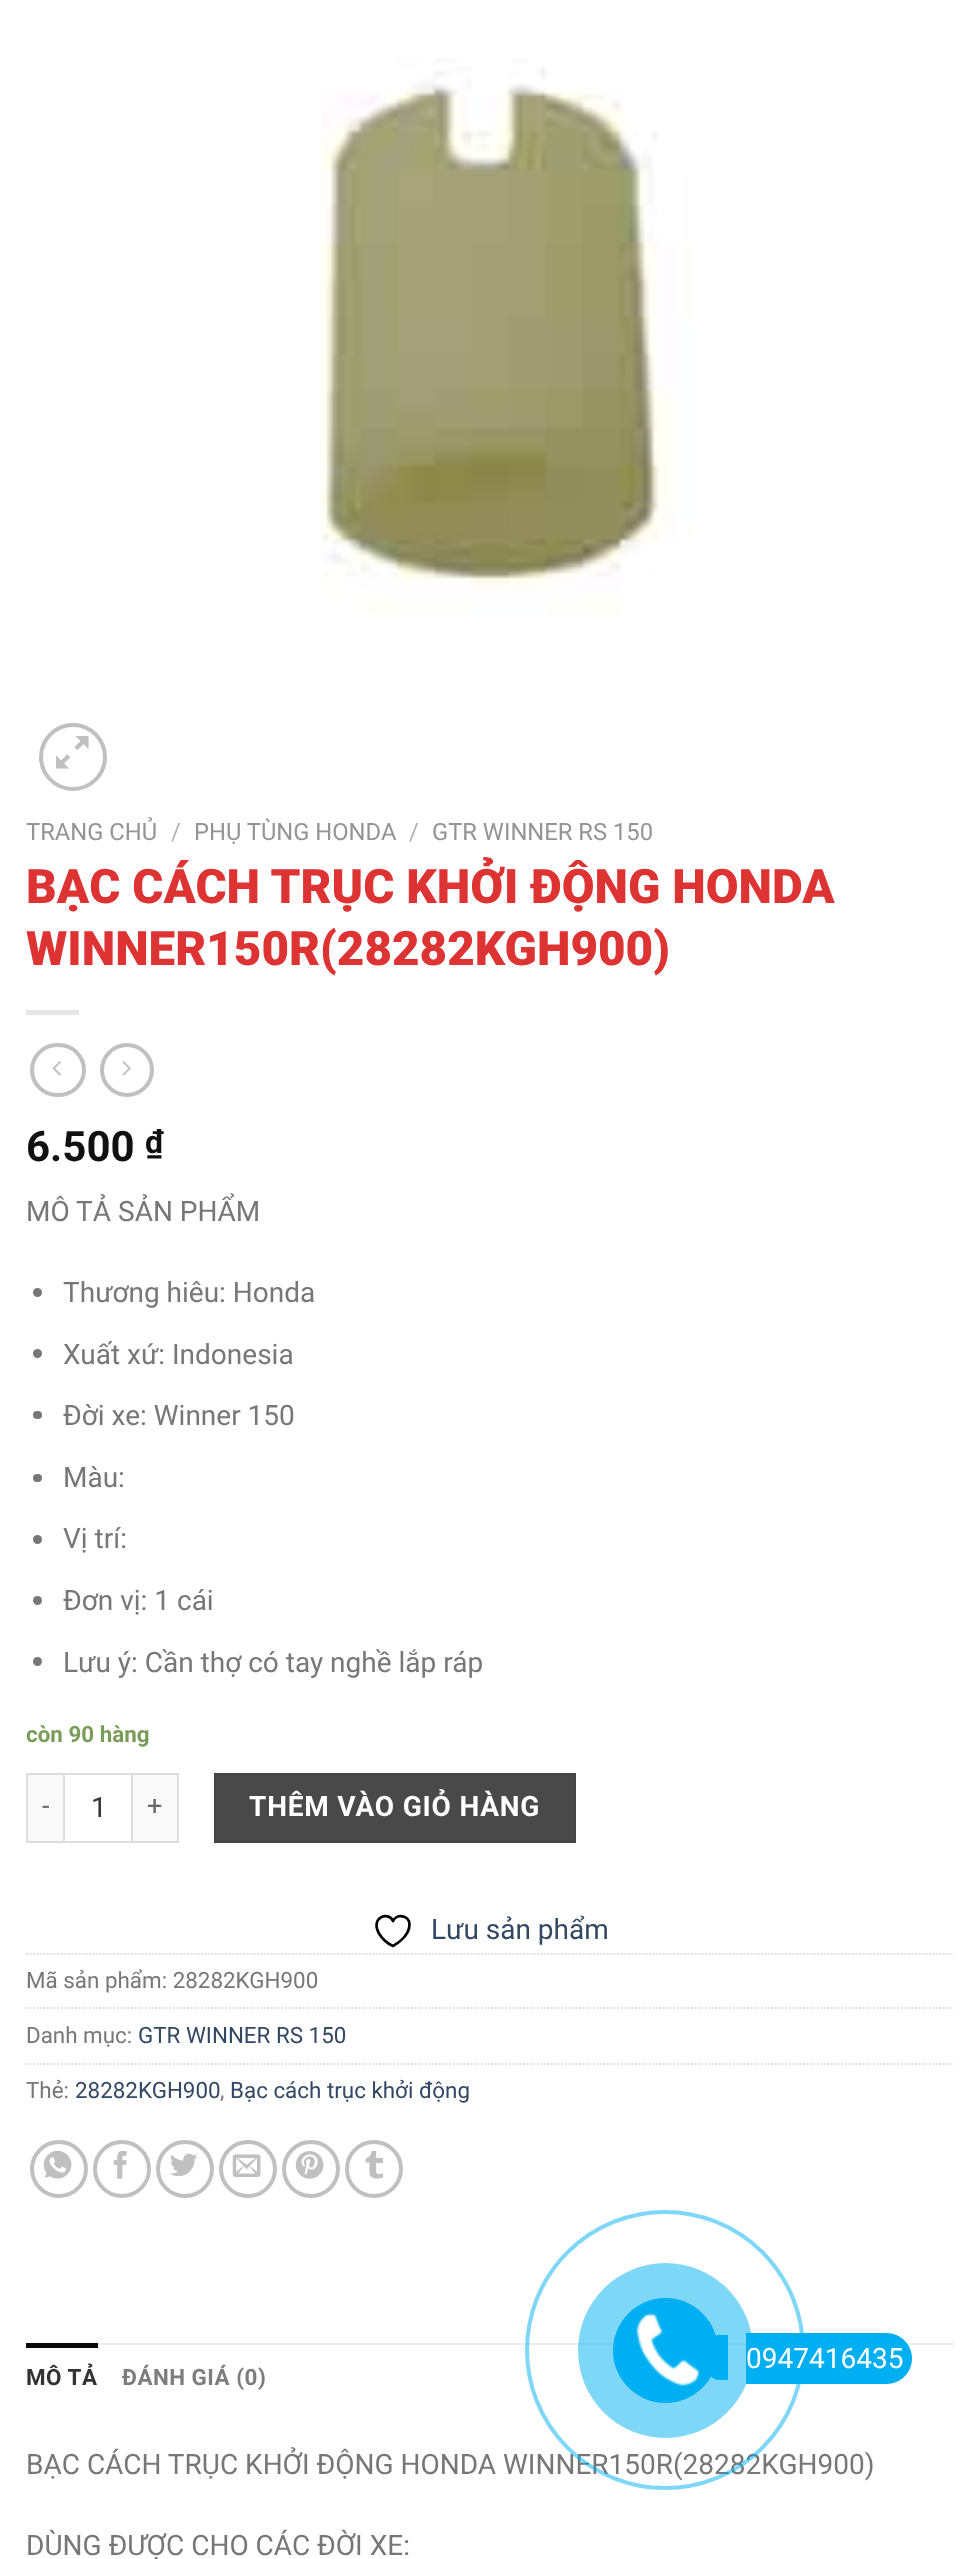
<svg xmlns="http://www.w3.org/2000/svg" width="980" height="2559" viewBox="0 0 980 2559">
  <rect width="100%" height="100%" fill="rgb(255,255,255)"/>
  <image x="320" y="58" width="373" height="558" href="pic1.png"/>
  <circle cx="73" cy="757" r="32" fill="none" stroke="rgb(192,192,192)" stroke-width="4"/>
  <image x="56" y="735" width="33" height="34" href="pic2.png"/>
  <text x="26" y="840" font-family="Roboto" font-size="23.75" fill="rgb(148,148,148)">TRANG CHỦ</text>
  <text x="171" y="840" font-family="Roboto" font-size="23.75" fill="rgb(178,178,178)">/</text>
  <text x="194" y="840" font-family="Roboto" font-size="23.75" fill="rgb(148,148,148)">PHỤ TÙNG HONDA</text>
  <text x="409" y="840" font-family="Roboto" font-size="23.75" fill="rgb(178,178,178)">/</text>
  <text x="432" y="840" font-family="Roboto" font-size="23.75" fill="rgb(148,148,148)">GTR WINNER RS 150</text>
  <g font-family="Roboto" font-size="47.6" font-weight="900" fill="rgb(221,51,51)">
    <text>
      <tspan x="26" y="903">BẠC CÁCH TRỤC KHỞI ĐỘNG HONDA</tspan>
      <tspan x="26" y="965">WINNER150R(28282KGH900)</tspan>
    </text>
  </g>
  <rect x="26" y="1010" width="53" height="5" fill="rgb(230,230,230)"/>
  <rect x="32" y="1045" width="52" height="50" rx="25" fill="none" stroke="rgb(192,192,192)" stroke-width="4"/>
  <image x="52" y="1061" width="9" height="15" href="pic3.png"/>
  <circle cx="127" cy="1070" r="25" fill="none" stroke="rgb(192,192,192)" stroke-width="4"/>
  <image x="122" y="1061" width="9" height="15" href="pic4.png"/>
  <text x="26" y="1161" font-family="Roboto" font-size="42" font-weight="bold" fill="rgb(17,17,17)">6.500</text>
  <text x="145" y="1153" font-family="Roboto" font-size="32" font-weight="bold" fill="rgb(17,17,17)">₫</text>
  <text x="26" y="1221" font-family="Roboto" font-size="28" fill="rgb(119,119,119)">MÔ TẢ SẢN PHẨM</text>
  <circle cx="37.5" cy="1292.5" r="4.5" fill="rgb(119,119,119)"/>
  <text x="63" y="1302" font-family="Roboto" font-size="28" fill="rgb(119,119,119)">Thương hiêu: Honda</text>
  <circle cx="37.5" cy="1353.5" r="4.5" fill="rgb(119,119,119)"/>
  <text x="63" y="1364" font-family="Roboto" font-size="28" fill="rgb(119,119,119)">Xuất xứ: Indonesia</text>
  <rect x="33" y="1411" width="9" height="8" rx="4" fill="rgb(119,119,119)"/>
  <text x="63" y="1425" font-family="Roboto" font-size="28" fill="rgb(119,119,119)">Đời xe: Winner 150</text>
  <rect x="33" y="1474" width="9" height="8" rx="4" fill="rgb(119,119,119)"/>
  <text x="63" y="1487" font-family="Roboto" font-size="28" fill="rgb(119,119,119)">Màu:</text>
  <circle cx="37.5" cy="1539.5" r="4.5" fill="rgb(119,119,119)"/>
  <text x="63" y="1548" font-family="Roboto" font-size="28" fill="rgb(119,119,119)">Vị trí:</text>
  <circle cx="37.5" cy="1600.5" r="4.5" fill="rgb(119,119,119)"/>
  <text x="63" y="1610" font-family="Roboto" font-size="28" fill="rgb(119,119,119)">Đơn vị: 1 cái</text>
  <circle cx="37.5" cy="1661.5" r="4.5" fill="rgb(119,119,119)"/>
  <text x="63" y="1672" font-family="Roboto" font-size="28" fill="rgb(119,119,119)">Lưu ý: Cần thợ có tay nghề lắp ráp</text>
  <text x="26" y="1742" font-family="Roboto" font-size="22.4" font-weight="bold" fill="rgb(122,156,89)">còn 90 hàng</text>
  <rect x="28" y="1775" width="35" height="66" fill="rgb(249,249,249)"/>
  <rect x="26" y="1773" width="37" height="2" fill="rgb(221,221,221)"/>
  <rect x="26" y="1841" width="37" height="2" fill="rgb(221,221,221)"/>
  <rect x="26" y="1773" width="2" height="70" fill="rgb(221,221,221)"/>
  <text x="42" y="1815" font-family="Roboto" font-size="27" letter-spacing="1" fill="rgb(102,102,102)">-</text>
  <rect x="64" y="1774" width="68" height="68" fill="none" stroke="rgb(221,221,221)" stroke-width="2"/>
  <text x="91" y="1817" font-family="Roboto" font-size="28" fill="rgb(51,51,51)">1</text>
  <rect x="133" y="1775" width="44" height="66" fill="rgb(249,249,249)"/>
  <rect x="133" y="1773" width="46" height="2" fill="rgb(221,221,221)"/>
  <rect x="177" y="1773" width="2" height="70" fill="rgb(221,221,221)"/>
  <rect x="133" y="1841" width="46" height="2" fill="rgb(221,221,221)"/>
  <text x="147" y="1815" font-family="Roboto" font-size="27" letter-spacing="1" fill="rgb(102,102,102)">+</text>
  <rect x="215" y="1774" width="360" height="68" fill="rgb(73,73,73)" stroke="rgb(69,69,69)" stroke-width="2"/>
  <text x="249" y="1816" font-family="Roboto" font-size="28" font-weight="bold" letter-spacing="0.8" fill="rgb(255,255,255)">THÊM VÀO GIỎ HÀNG</text>
  <path d="M409.5 1924.5C409.5 1915.5 396.5 1913 393 1921C388.5 1911 370 1917 379 1933.5C382 1938.5 387.5 1943.5 393 1946C393 1946 409.5 1937.5 409.5 1924.5Z" fill="none" stroke="rgb(0,0,0)" stroke-width="2.7" stroke-linecap="round" stroke-linejoin="round"/>
  <text x="431" y="1939" font-family="Roboto" font-size="28" fill="rgb(51,72,98)">Lưu sản phẩm</text>
  <path d="M26 1954H954" fill="none" stroke="rgb(221,221,221)" stroke-width="1.8" stroke-dasharray="1.75 1.75"/>
  <text x="26" y="1988" font-family="Roboto" font-size="22.4" fill="rgb(119,119,119)">Mã sản phẩm: 28282KGH900</text>
  <path d="M26 2008H954" fill="none" stroke="rgb(221,221,221)" stroke-width="1.8" stroke-dasharray="1.75 1.75"/>
  <text x="26" y="2043" font-family="Roboto" font-size="22.4" fill="rgb(119,119,119)">Danh mục:</text>
  <text x="138" y="2043" font-family="Roboto" font-size="22.4" fill="rgb(51,72,98)">GTR WINNER RS 150</text>
  <path d="M26 2064H954" fill="none" stroke="rgb(221,221,221)" stroke-width="1.8" stroke-dasharray="1.75 1.75"/>
  <text x="26" y="2098" font-family="Roboto" font-size="22.4" fill="rgb(119,119,119)">Thẻ:</text>
  <text x="75" y="2098" font-family="Roboto" font-size="22.4" fill="rgb(51,72,98)">28282KGH900</text>
  <text x="220" y="2098" font-family="Roboto" font-size="22.4" fill="rgb(119,119,119)">,</text>
  <text x="230" y="2098" font-family="Roboto" font-size="22.4" fill="rgb(51,72,98)">Bạc cách trục khởi động</text>
  <circle cx="59" cy="2169" r="27" fill="none" stroke="rgb(192,192,192)" stroke-width="4"/>
  <image x="43" y="2150" width="29" height="29" href="pic5.png"/>
  <circle cx="122" cy="2169" r="27" fill="none" stroke="rgb(192,192,192)" stroke-width="4"/>
  <image x="113" y="2151" width="14" height="28" href="pic6.png"/>
  <circle cx="185" cy="2169" r="27" fill="none" stroke="rgb(192,192,192)" stroke-width="4"/>
  <image x="170" y="2153" width="28" height="24" href="pic7.png"/>
  <circle cx="248" cy="2169" r="27" fill="none" stroke="rgb(192,192,192)" stroke-width="4"/>
  <image x="232" y="2154" width="29" height="23" href="pic8.png"/>
  <circle cx="311" cy="2169" r="27" fill="none" stroke="rgb(192,192,192)" stroke-width="4"/>
  <image x="295" y="2151" width="29" height="28" href="pic9.png"/>
  <circle cx="374" cy="2169" r="27" fill="none" stroke="rgb(192,192,192)" stroke-width="4"/>
  <image x="365" y="2151" width="18" height="28" href="pic10.png"/>
  <rect x="98" y="2343" width="856" height="2" fill="rgb(236,236,236)"/>
  <rect x="26" y="2343" width="72" height="5" fill="rgb(10,10,10)"/>
  <text x="26" y="2385" font-family="Roboto" font-size="22.4" font-weight="bold" letter-spacing="0.5" fill="rgb(51,51,51)">MÔ TẢ</text>
  <text x="122" y="2385" font-family="Roboto" font-size="22.4" font-weight="bold" letter-spacing="0.5" fill="rgb(125,125,125)">ĐÁNH GIÁ (0)</text>
  <g font-family="Roboto" font-size="28" fill="rgb(119,119,119)">
    <text x="26" y="2474">BẠC CÁCH TRỤC KHỞI ĐỘNG HONDA WINNER150R(28282KGH900)</text>
    <text x="26" y="2555">DÙNG ĐƯỢC CHO CÁC ĐỜI XE:</text>
  </g>
  <circle cx="665" cy="2350" r="138" fill="none" stroke="rgba(0,175,242,0.5)" stroke-width="4"/>
  <circle cx="665.5" cy="2350.5" r="87.5" fill="rgba(0,175,242,0.5)"/>
  <circle cx="665.5" cy="2350.5" r="52.5" fill="rgb(0,175,242)"/>
  <image x="636" y="2313" width="64" height="73" href="pic11.png"/>
  <path d="M746 2333H886.5C900.5 2333 912 2344.5 912 2358.5C912 2372.5 900.5 2384 886.5 2384H746Z" fill="rgb(0,175,242)"/>
  <text x="746" y="2368" font-family="Roboto" font-size="28" fill="rgb(255,255,255)">0947416435</text>
  <path d="M718.5 2335H728V2380H718.5C713.5 2380 709 2375.5 709 2370.5V2344.5C709 2339.5 713.5 2335 718.5 2335Z" fill="rgb(0,175,242)"/>
</svg>
